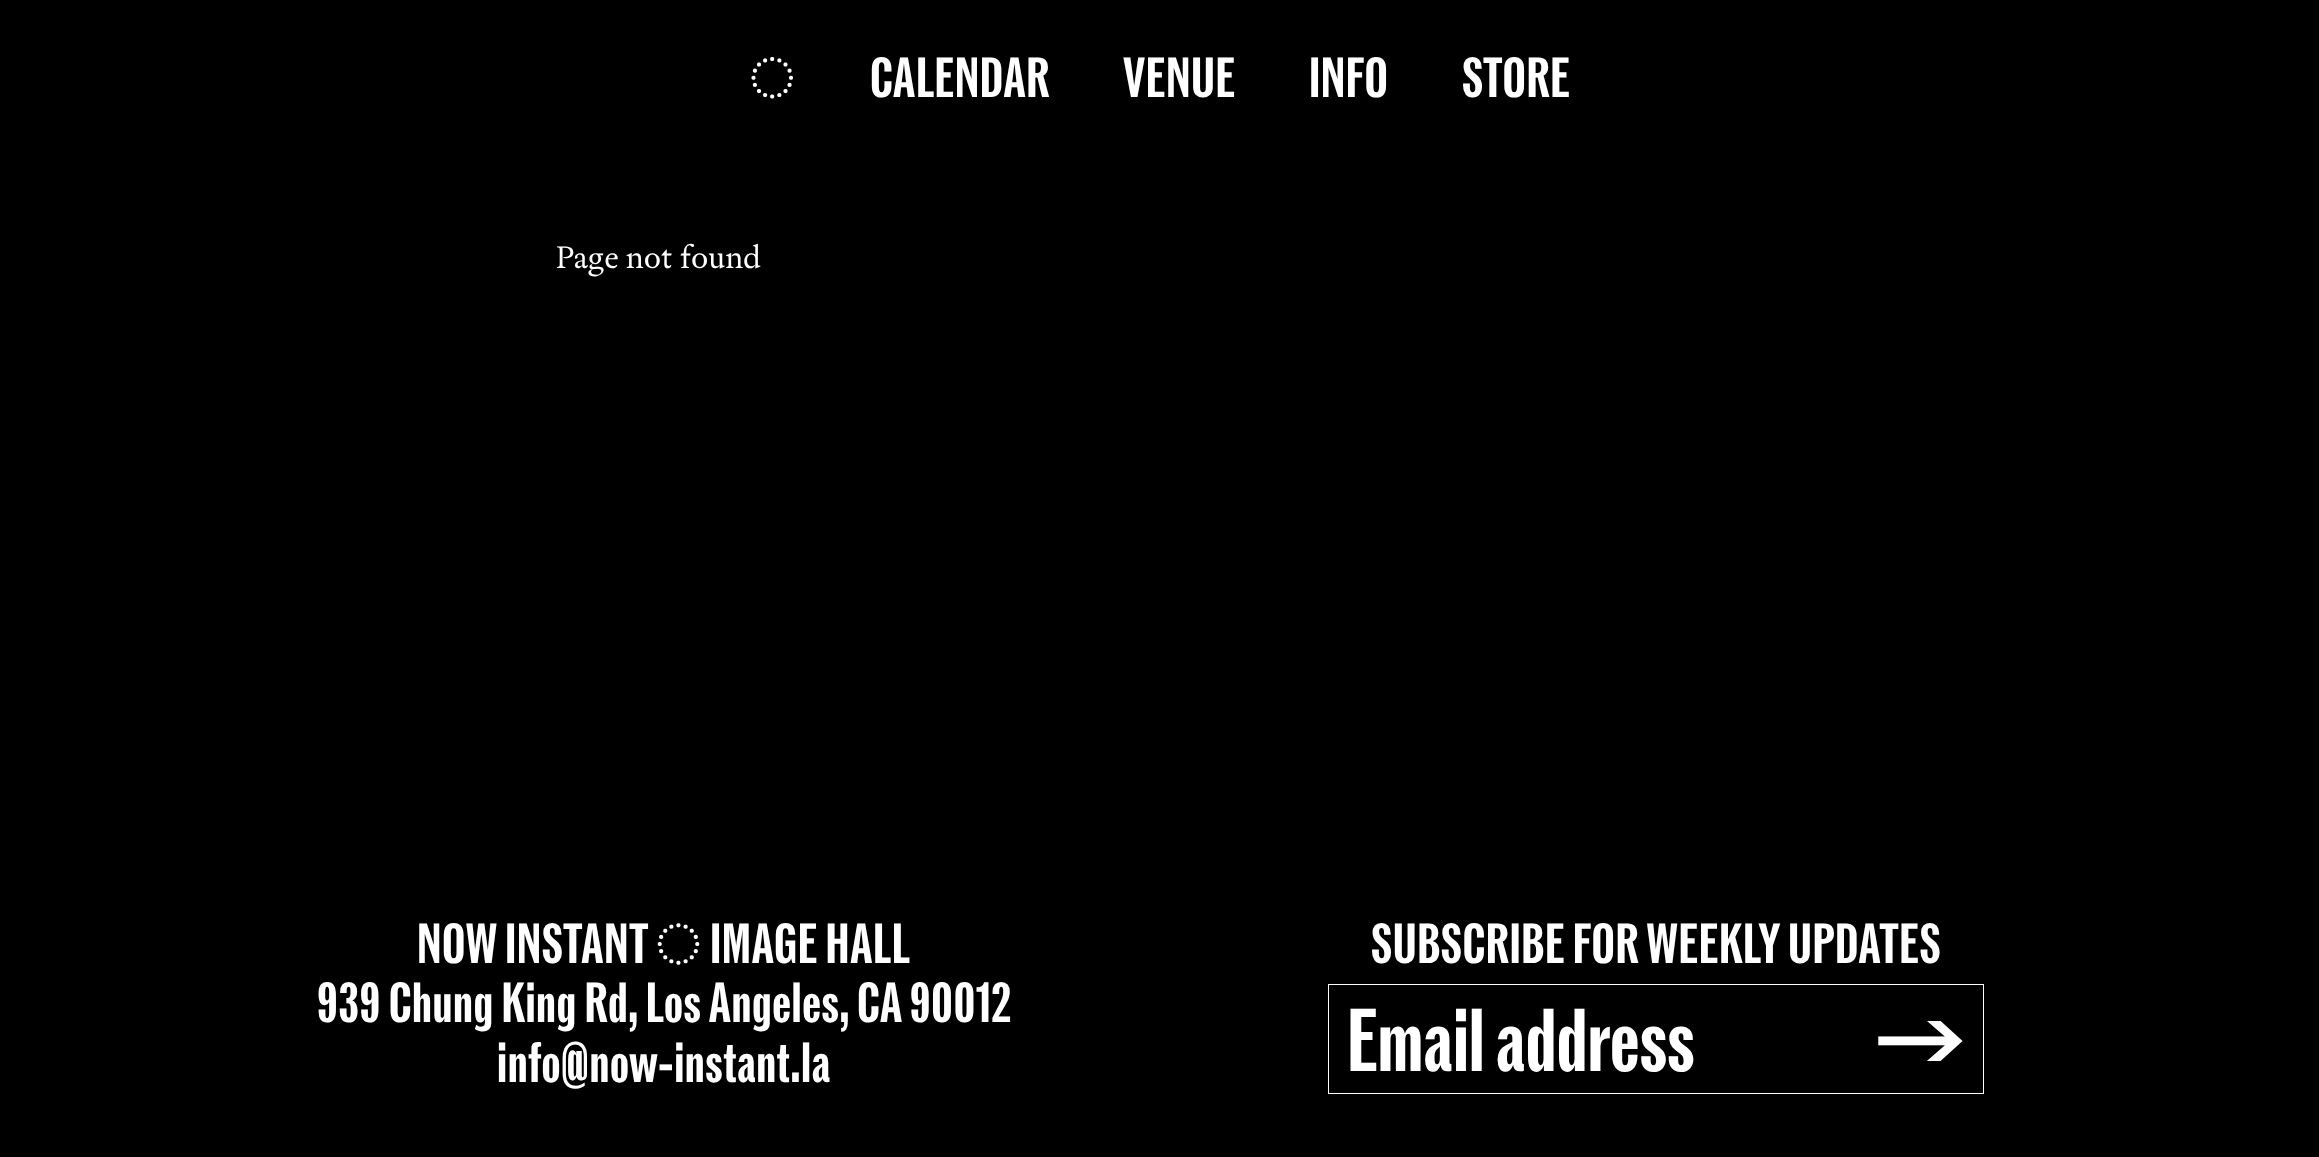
<svg xmlns="http://www.w3.org/2000/svg" width="2319" height="1157" viewBox="0 0 2319 1157">
  <rect width="100%" height="100%" fill="rgb(0,0,0)"/>
  <image x="751" y="57" width="42" height="42" href="pic1.png"/>
  <g font-family="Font" font-size="56.5" font-weight="bold" letter-spacing="0.55" fill="rgb(255,255,255)">
    <text x="870" y="97">CALENDAR</text>
    <text x="1123" y="97">VENUE</text>
    <text x="1309" y="97">INFO</text>
    <text x="1462" y="97">STORE</text>
  </g>
  <text x="556" y="268" font-family="Font" font-size="32.75" fill="rgb(255,255,255)">Page not found</text>
  <text x="417" y="963" font-family="Font" font-size="56.5" font-weight="bold" letter-spacing="0.55" fill="rgb(255,255,255)">NOW INSTANT</text>
  <image x="657" y="923" width="43" height="42" href="pic2.png"/>
  <g font-family="Font" font-size="56.5" font-weight="bold" letter-spacing="0.55" fill="rgb(255,255,255)">
    <text x="710" y="963">IMAGE HALL</text>
    <text x="317" y="1022">939 Chung King Rd, Los Angeles, CA 90012</text>
    <text x="497" y="1082">info@now-instant.la</text>
    <text x="1371" y="963">SUBSCRIBE FOR WEEKLY UPDATES</text>
  </g>
  <rect x="1328.5" y="984.5" width="655" height="109" fill="none" stroke="rgb(255,255,255)"/>
  <g font-family="Font" font-size="89" font-weight="bold" fill="rgb(255,255,255)">
    <text x="1347" y="1071">Email address</text>
    <text x="1876" y="1070">→</text>
  </g>
</svg>
